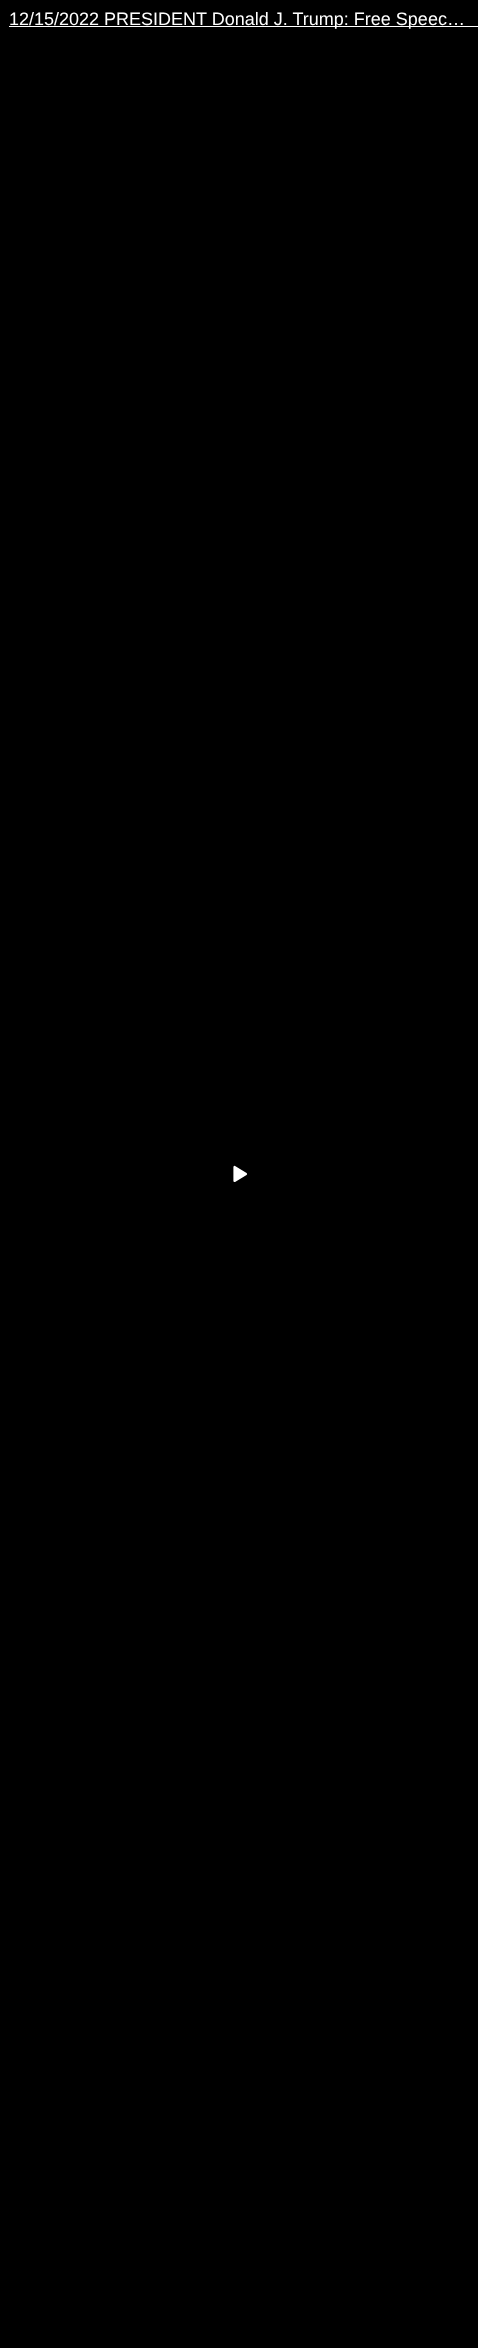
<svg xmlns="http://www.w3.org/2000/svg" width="478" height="2348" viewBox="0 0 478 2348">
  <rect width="100%" height="100%" fill="rgb(0,0,0)"/>
  <rect x="9" y="26" width="469" height="1" fill="rgb(255,255,255)"/>
  <text x="9" y="25" font-family="Liberation Sans" font-size="18" fill="rgb(255,255,255)">12/15/2022 PRESIDENT Donald J. Trump: Free Speec…</text>
  <path d="M246 1174L234.5 1167V1181Z" fill="rgb(255,255,255)" stroke="rgb(255,255,255)" stroke-width="2.2" stroke-linejoin="round"/>
</svg>
